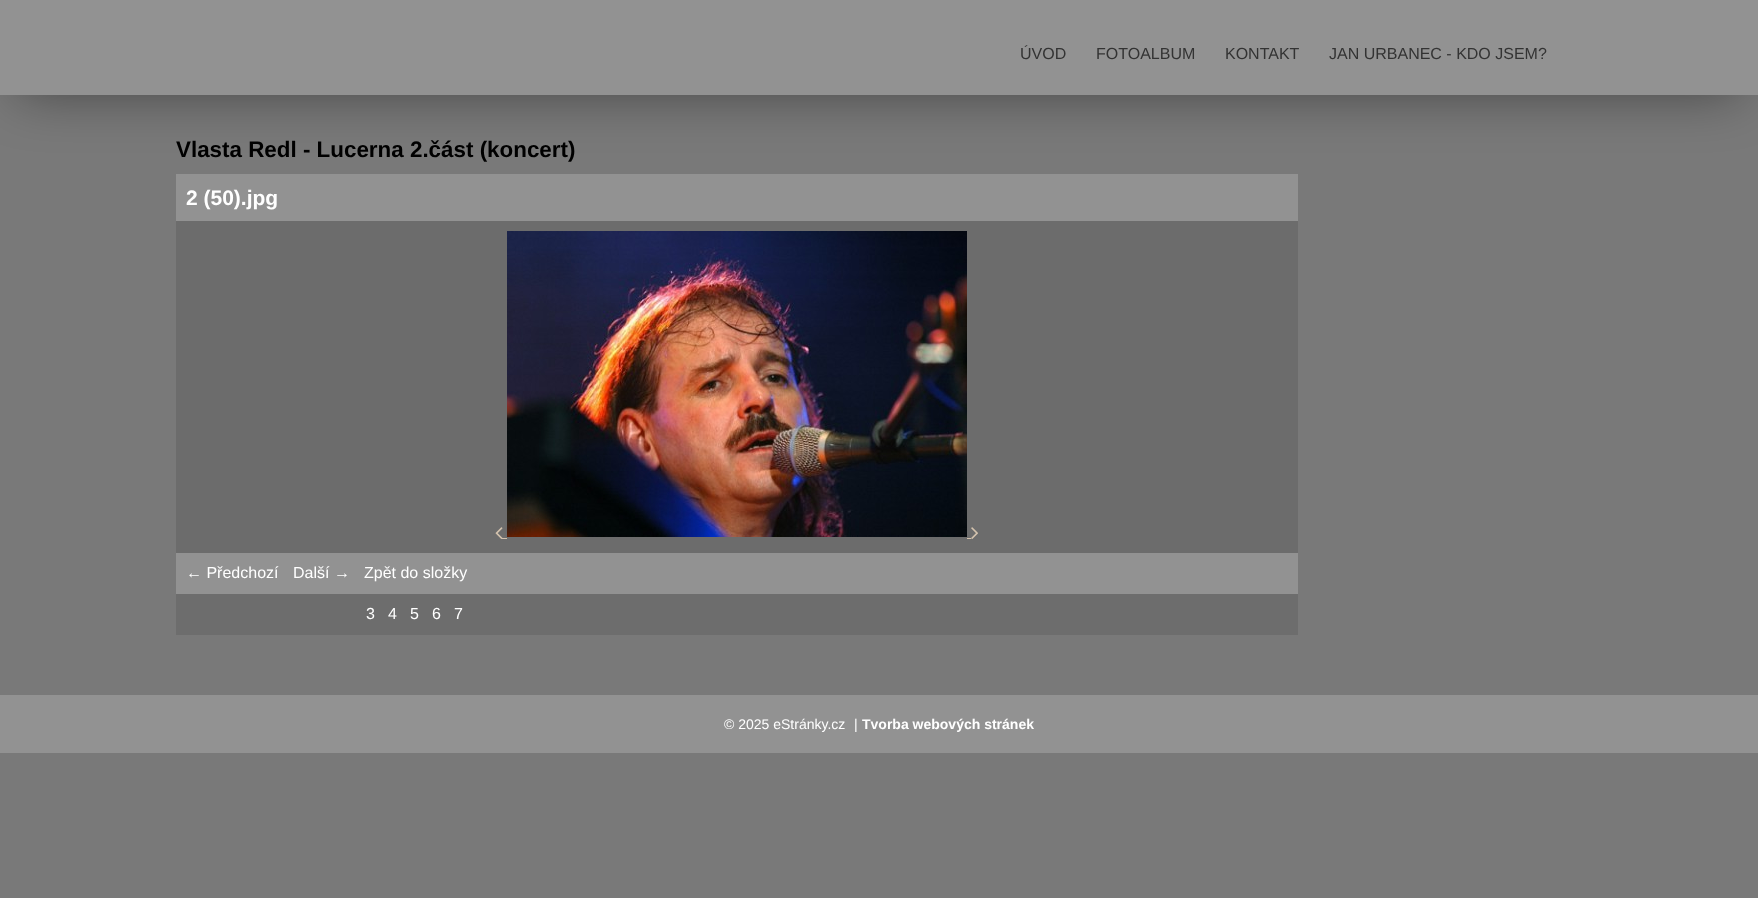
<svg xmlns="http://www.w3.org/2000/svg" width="1758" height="898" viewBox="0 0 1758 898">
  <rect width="100%" height="100%" fill="rgb(121,121,121)"/>
  <rect x="18" y="33" width="1722" height="59" fill="rgba(0,0,0,0.45)" filter="blur(27px)"/>
  <rect x="0" y="0" width="1758" height="95" fill="rgb(146,146,146)"/>
  <g font-family="Liberation Sans" font-size="16" fill="rgb(51,51,51)">
    <text x="1020" y="59">ÚVOD</text>
    <text x="1096" y="59">FOTOALBUM</text>
    <text x="1225" y="59">KONTAKT</text>
    <text x="1329" y="59">JAN URBANEC - KDO JSEM?</text>
  </g>
  <text x="176" y="157" font-family="Liberation Sans" font-size="22.4" font-weight="bold" fill="rgb(0,0,0)">Vlasta Redl - Lucerna 2.část (koncert)</text>
  <rect x="176" y="174" width="1122" height="47" fill="rgb(146,146,146)"/>
  <text x="186" y="205" font-family="Liberation Sans" font-size="21" font-weight="bold" fill="rgb(255,255,255)">2 (50).jpg</text>
  <rect x="176" y="221" width="1122" height="332" fill="rgb(108,108,108)"/>
  <image x="495" y="527" width="8" height="12" href="pic1.png"/>
  <rect x="502" y="538" width="5" height="1" fill="rgb(212,195,174)"/>
  <image x="507" y="231" width="460" height="306" href="pic2.png"/>
  <rect x="967" y="538" width="4" height="1" fill="rgb(212,195,174)"/>
  <image x="971" y="527" width="7" height="12" href="pic3.png"/>
  <rect x="176" y="553" width="1122" height="41" fill="rgb(146,146,146)"/>
  <g font-family="Liberation Sans" font-size="16" fill="rgb(255,255,255)">
    <text x="186" y="578">← Předchozí</text>
    <text x="293" y="578">Další →</text>
    <text x="364" y="578">Zpět do složky</text>
  </g>
  <rect x="176" y="594" width="1122" height="41" fill="rgb(109,109,109)"/>
  <g font-family="Liberation Sans" font-size="16" fill="rgb(255,255,255)">
    <text x="366" y="619">3</text>
    <text x="388" y="619">4</text>
    <text x="410" y="619">5</text>
    <text x="432" y="619">6</text>
    <text x="454" y="619">7</text>
  </g>
  <rect x="0" y="695" width="1758" height="58" fill="rgb(146,146,146)"/>
  <g font-family="Liberation Sans" font-size="14" fill="rgb(255,255,255)">
    <text x="724" y="729">© 2025 eStránky.cz</text>
    <text x="854" y="729">|</text>
  </g>
  <text x="862" y="729" font-family="Liberation Sans" font-size="14" font-weight="bold" fill="rgb(255,255,255)">Tvorba webových stránek</text>
</svg>
